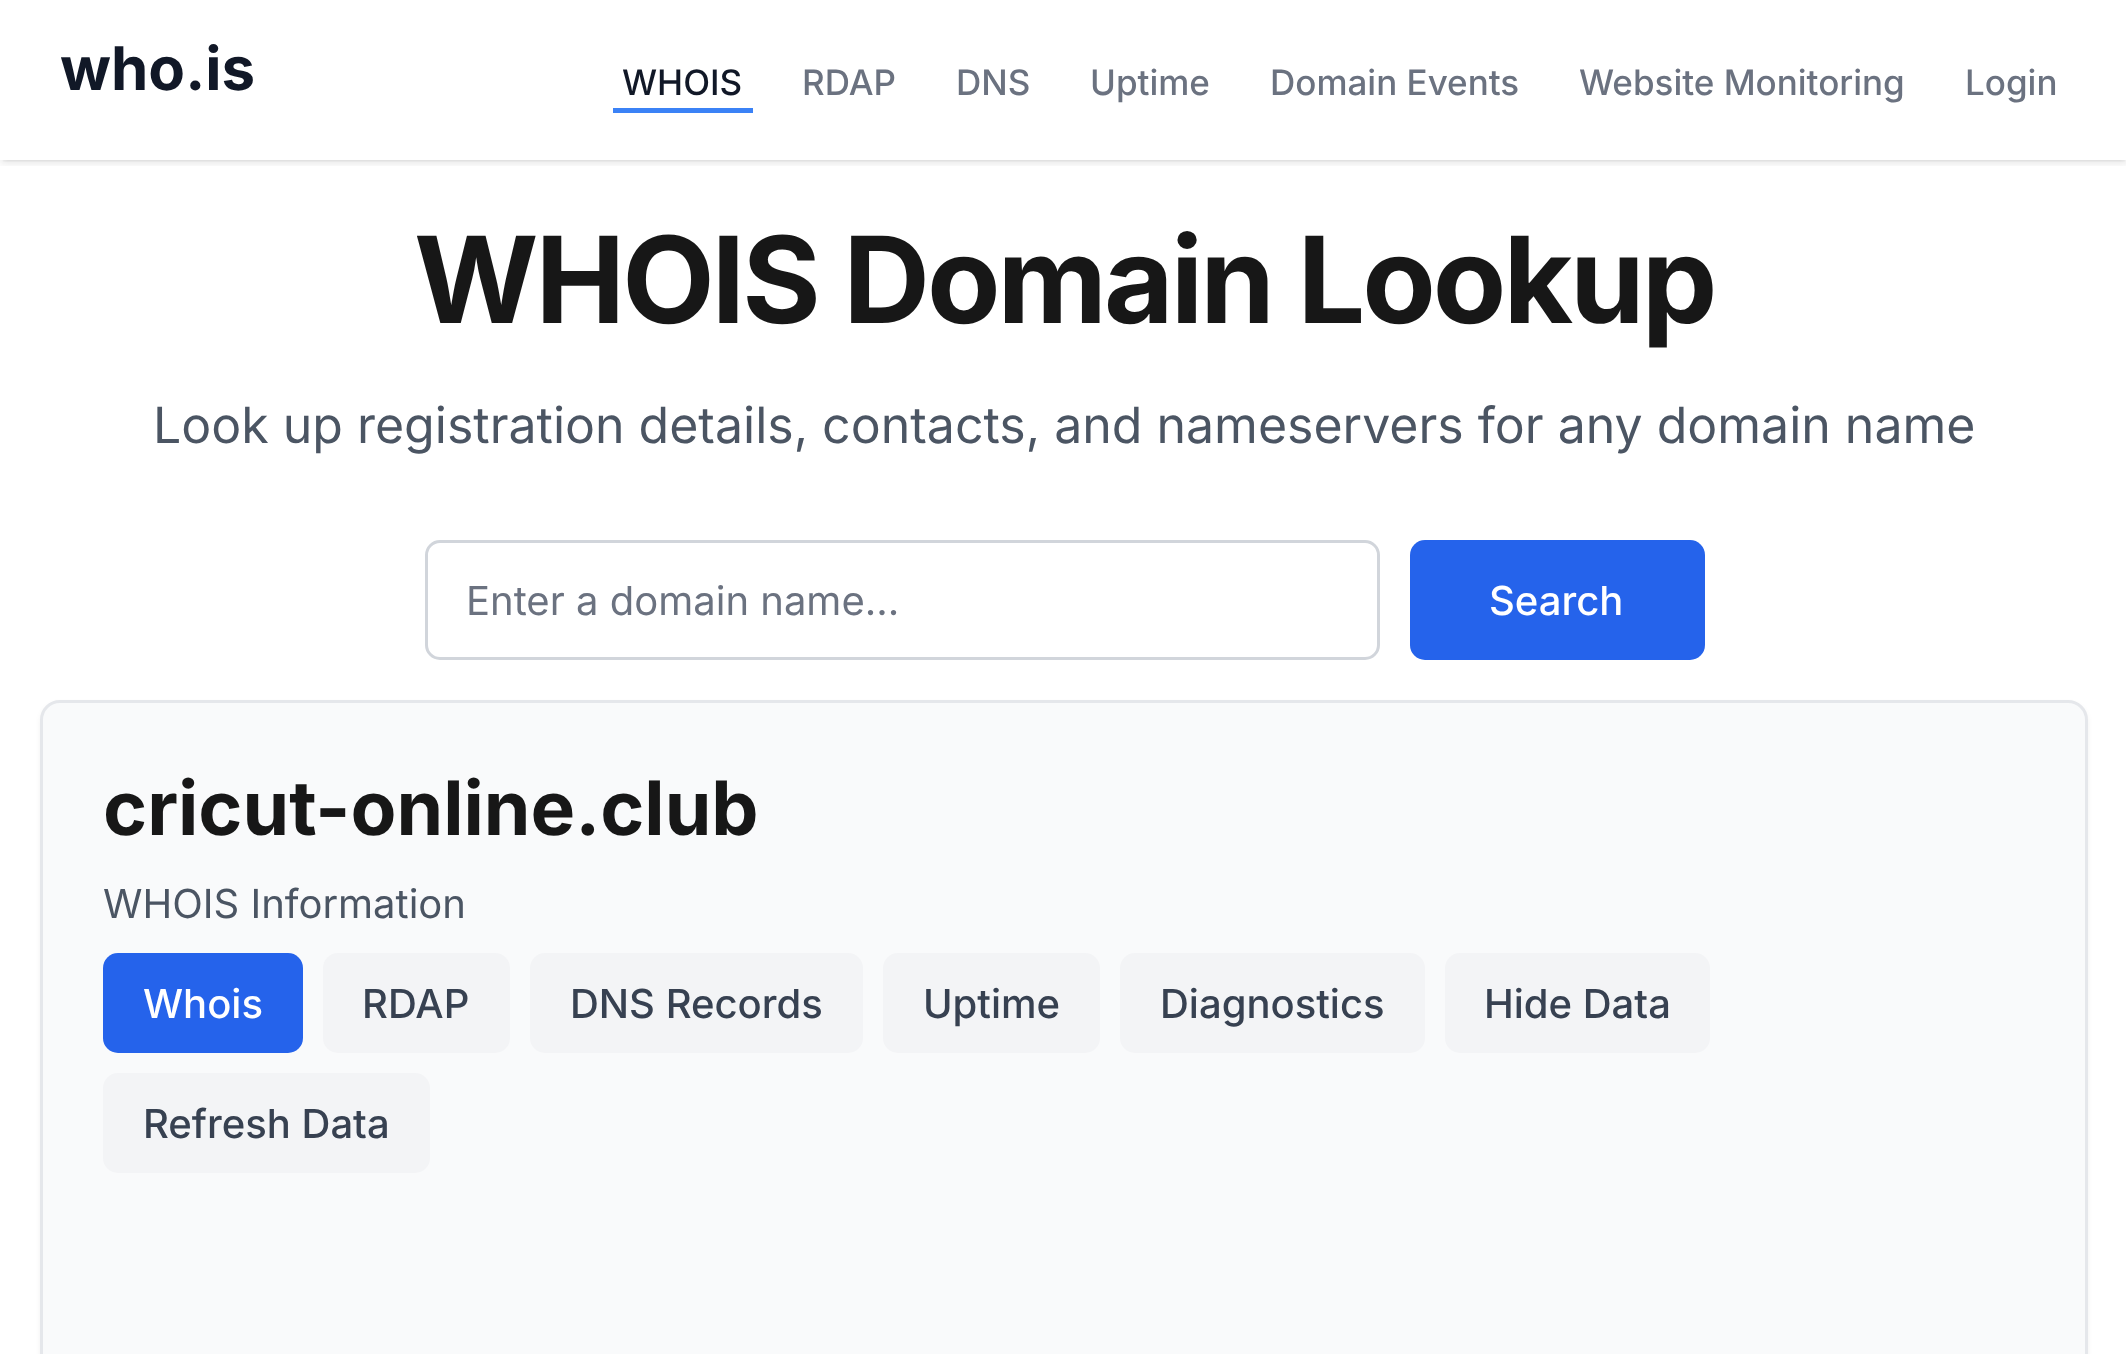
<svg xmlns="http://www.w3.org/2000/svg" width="2126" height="1354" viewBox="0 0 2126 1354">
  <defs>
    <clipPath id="clip1"><rect x="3" y="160" width="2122" height="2"/></clipPath>
    <clipPath id="clip2"><rect x="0" y="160" width="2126" height="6"/></clipPath>
  </defs>
  <rect width="100%" height="100%" fill="rgb(255,255,255)"/>
  <g clip-path="url(#clip1)">
    <rect x="3" y="5" width="2122" height="155" fill="rgba(0,0,0,0.1)" filter="blur(2.5px)"/>
  </g>
  <g clip-path="url(#clip2)">
    <rect x="0" y="3" width="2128" height="160" fill="rgba(0,0,0,0.1)" filter="blur(4px)"/>
  </g>
  <text x="60" y="90" font-family="Inter" font-size="60" font-weight="bold" fill="rgb(17,24,39)">who.is</text>
  <rect x="613" y="108" width="140" height="5" fill="rgb(59,130,246)"/>
  <text x="622" y="95" font-family="Inter" font-size="35" font-weight="500" fill="rgb(17,24,39)">WHOIS</text>
  <g font-family="Inter" font-size="35" font-weight="500" fill="rgb(107,114,128)">
    <text x="802" y="95">RDAP</text>
    <text x="956" y="95">DNS</text>
    <text x="1090" y="95">Uptime</text>
    <text x="1270" y="95">Domain Events</text>
    <text x="1579" y="95">Website Monitoring</text>
    <text x="1965" y="95">Login</text>
  </g>
  <text x="414" y="323" font-family="Inter" font-size="120" font-weight="bold" letter-spacing="-3" fill="rgb(23,23,23)">WHOIS Domain Lookup</text>
  <text x="153" y="443" font-family="Inter" font-size="50" fill="rgb(75,85,99)">Look up registration details, contacts, and nameservers for any domain name</text>
  <rect x="426.5" y="541.5" width="952" height="117" rx="13.5" fill="none" stroke="rgb(209,213,219)" stroke-width="3"/>
  <text x="466" y="615" font-family="Inter" font-size="40" fill="rgb(107,114,128)">Enter a domain name...</text>
  <rect x="1410" y="540" width="295" height="120" rx="15" fill="rgb(37,99,235)"/>
  <text x="1489" y="615" font-family="Inter" font-size="40" font-weight="500" fill="rgb(255,255,255)">Search</text>
  <rect x="40" y="703" width="2048" height="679" rx="20" fill="rgba(0,0,0,0.05)" filter="blur(2.5px)"/>
  <rect x="41.5" y="701.5" width="2045" height="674" rx="18.5" fill="rgb(249,250,251)" stroke="rgb(229,231,235)" stroke-width="3"/>
  <text x="103" y="835" font-family="Inter" font-size="75" font-weight="bold" fill="rgb(23,23,23)">cricut-online.club</text>
  <text x="103" y="918" font-family="Inter" font-size="40" fill="rgb(75,85,99)">WHOIS Information</text>
  <rect x="103" y="953" width="200" height="100" rx="15" fill="rgb(37,99,235)"/>
  <text x="143" y="1018" font-family="Inter" font-size="40" font-weight="500" fill="rgb(255,255,255)">Whois</text>
  <rect x="323" y="953" width="187" height="100" rx="15" fill="rgb(243,244,246)"/>
  <text x="362" y="1018" font-family="Inter" font-size="40" font-weight="500" fill="rgb(55,65,81)">RDAP</text>
  <rect x="530" y="953" width="333" height="100" rx="15" fill="rgb(243,244,246)"/>
  <text x="570" y="1018" font-family="Inter" font-size="40" font-weight="500" fill="rgb(55,65,81)">DNS Records</text>
  <rect x="883" y="953" width="217" height="100" rx="15" fill="rgb(243,244,246)"/>
  <text x="923" y="1018" font-family="Inter" font-size="40" font-weight="500" fill="rgb(55,65,81)">Uptime</text>
  <rect x="1120" y="953" width="305" height="100" rx="15" fill="rgb(243,244,246)"/>
  <text x="1160" y="1018" font-family="Inter" font-size="40" font-weight="500" fill="rgb(55,65,81)">Diagnostics</text>
  <rect x="1445" y="953" width="265" height="100" rx="15" fill="rgb(243,244,246)"/>
  <text x="1484" y="1018" font-family="Inter" font-size="40" font-weight="500" fill="rgb(55,65,81)">Hide Data</text>
  <rect x="103" y="1073" width="327" height="100" rx="15" fill="rgb(243,244,246)"/>
  <text x="143" y="1138" font-family="Inter" font-size="40" font-weight="500" fill="rgb(55,65,81)">Refresh Data</text>
</svg>
